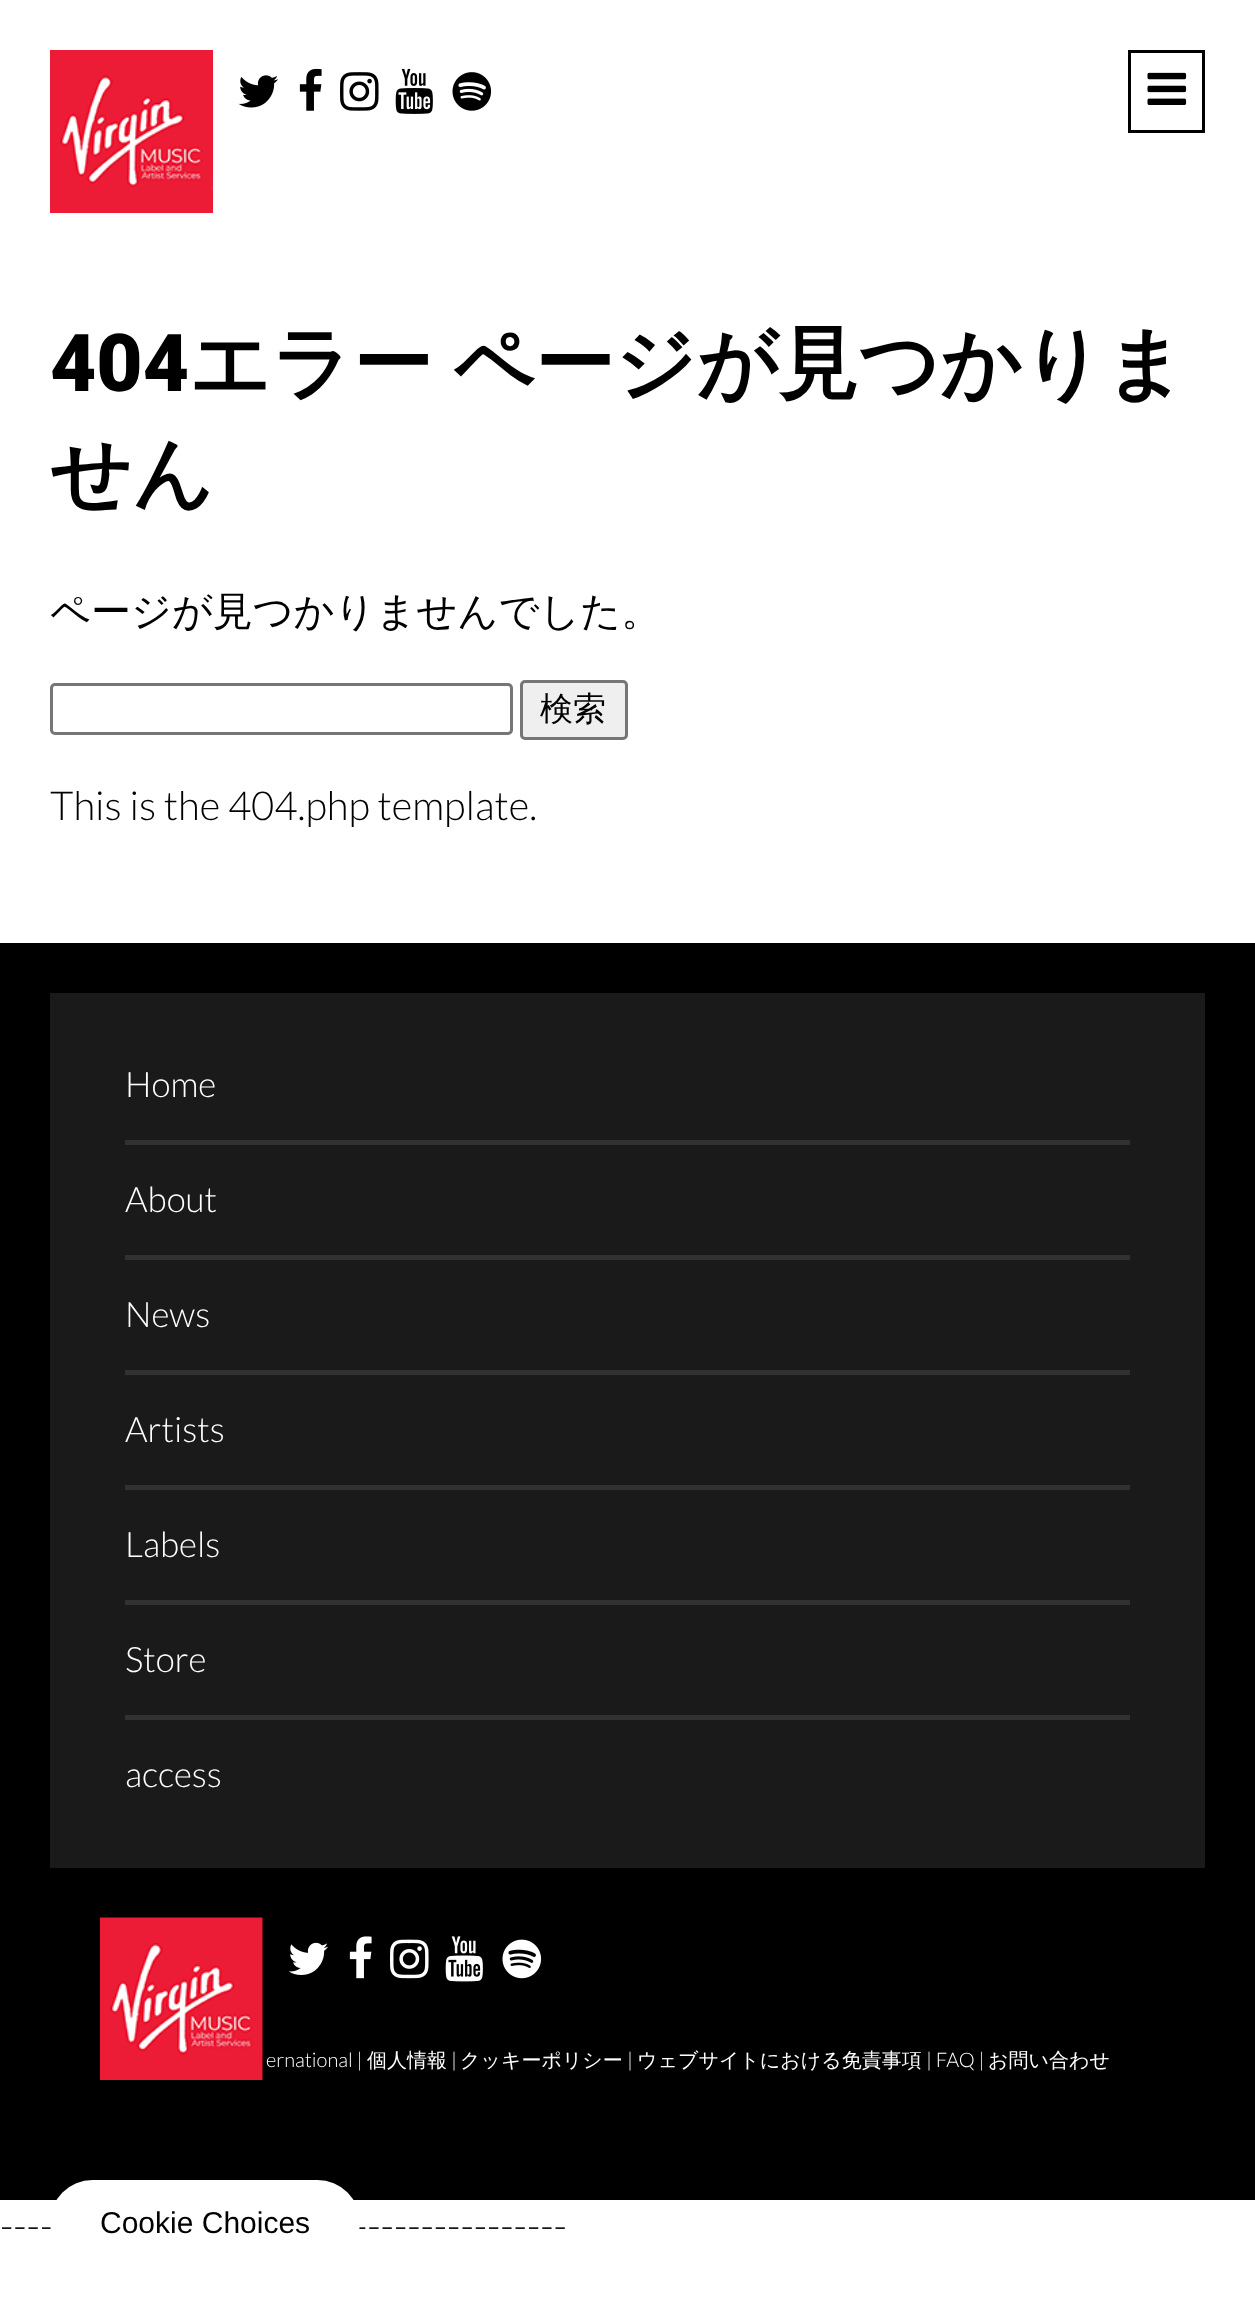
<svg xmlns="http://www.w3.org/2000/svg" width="1255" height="2313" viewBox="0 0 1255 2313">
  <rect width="100%" height="100%" fill="rgb(255,255,255)"/>
  <image x="50" y="50" width="163" height="163" href="pic1.png"/>
  <image x="238" y="75" width="40" height="33" href="pic2.png"/>
  <image x="299" y="68" width="23" height="43" href="pic3.png"/>
  <image x="340" y="72" width="39" height="39" href="pic4.png"/>
  <image x="395" y="68" width="38" height="46" href="pic5.png"/>
  <image x="452" y="72" width="40" height="39" href="pic6.png"/>
  <rect x="1129.5" y="51.5" width="74" height="80" fill="none" stroke="rgb(0,0,0)" stroke-width="3"/>
  <image x="1147" y="72" width="40" height="33" href="pic7.png"/>
  <text x="50" y="391" font-family="Roboto" font-size="80" font-weight="900" fill="rgb(0,0,0)">404</text>
  <g font-family="WenQuanYi Zen Hei" font-size="80" font-weight="bold" fill="rgb(0,0,0)">
    <text x="189" y="391" word-spacing="-4">エラー ページが見つかりま</text>
    <text x="50" y="501">せん</text>
  </g>
  <text x="50" y="625" font-family="WenQuanYi Zen Hei" font-size="40" font-weight="500" fill="rgb(0,0,0)">ページが見つかりませんでした。</text>
  <rect x="51.5" y="684.5" width="460" height="49" rx="3.5" fill="none" stroke="rgb(118,118,118)" stroke-width="3"/>
  <rect x="521.5" y="681.5" width="105" height="57" rx="3.5" fill="rgb(239,239,239)" stroke="rgb(118,118,118)" stroke-width="3"/>
  <text x="540" y="720" font-family="WenQuanYi Zen Hei" font-size="33" font-weight="500" fill="rgb(0,0,0)">検索</text>
  <text x="50" y="820" font-family="Lato" font-size="40" font-weight="300" fill="rgb(0,0,0)">This is the 404.php template.</text>
  <rect x="0" y="943" width="1255" height="1257" fill="rgb(0,0,0)"/>
  <rect x="50" y="993" width="1155" height="875" fill="rgb(26,26,26)"/>
  <text x="125" y="1097" font-family="Lato" font-size="35" font-weight="300" fill="rgb(255,255,255)">Home</text>
  <rect x="125" y="1140" width="1005" height="5" fill="rgb(49,49,49)"/>
  <text x="125" y="1212" font-family="Lato" font-size="35" font-weight="300" fill="rgb(255,255,255)">About</text>
  <rect x="125" y="1255" width="1005" height="5" fill="rgb(49,49,49)"/>
  <text x="125" y="1327" font-family="Lato" font-size="35" font-weight="300" fill="rgb(255,255,255)">News</text>
  <rect x="125" y="1370" width="1005" height="5" fill="rgb(49,49,49)"/>
  <text x="125" y="1442" font-family="Lato" font-size="35" font-weight="300" fill="rgb(255,255,255)">Artists</text>
  <rect x="125" y="1485" width="1005" height="5" fill="rgb(49,49,49)"/>
  <text x="125" y="1557" font-family="Lato" font-size="35" font-weight="300" fill="rgb(255,255,255)">Labels</text>
  <rect x="125" y="1600" width="1005" height="5" fill="rgb(49,49,49)"/>
  <text x="125" y="1672" font-family="Lato" font-size="35" font-weight="300" fill="rgb(255,255,255)">Store</text>
  <rect x="125" y="1715" width="1005" height="5" fill="rgb(49,49,49)"/>
  <text x="125" y="1787" font-family="Lato" font-size="35" font-weight="300" fill="rgb(255,255,255)">access</text>
  <image x="100" y="1917" width="163" height="163" href="pic8.png"/>
  <image x="288" y="1942" width="40" height="33" href="pic9.png"/>
  <image x="349" y="1936" width="23" height="43" href="pic10.png"/>
  <image x="390" y="1939" width="39" height="40" href="pic11.png"/>
  <image x="445" y="1936" width="38" height="46" href="pic12.png"/>
  <image x="502" y="1939" width="40" height="40" href="pic13.png"/>
  <text x="266" y="2067" font-family="Lato" font-size="20" font-weight="300" fill="rgb(255,255,255)">ernational |</text>
  <text x="367" y="2067" font-family="WenQuanYi Zen Hei" font-size="20" font-weight="500" fill="rgb(255,255,255)">個人情報</text>
  <text x="451" y="2067" font-family="Lato" font-size="20" font-weight="300" fill="rgb(255,255,255)">|</text>
  <text x="460" y="2067" font-family="WenQuanYi Zen Hei" font-size="20" font-weight="500" fill="rgb(255,255,255)">クッキーポリシー</text>
  <text x="627" y="2067" font-family="Lato" font-size="20" font-weight="300" fill="rgb(255,255,255)">|</text>
  <text x="637" y="2067" font-family="WenQuanYi Zen Hei" font-size="20" font-weight="500" fill="rgb(255,255,255)">ウェブサイトにおける免責事項</text>
  <text x="926" y="2067" font-family="Lato" font-size="20" font-weight="300" fill="rgb(255,255,255)">| FAQ |</text>
  <text x="988" y="2067" font-family="WenQuanYi Zen Hei" font-size="20" font-weight="500" fill="rgb(255,255,255)">お問い合わせ</text>
  <g font-family="Lato" font-size="40" font-weight="300" fill="rgb(0,0,0)">
    <text x="0" y="2240">----</text>
    <text x="354" y="2240">----------------</text>
  </g>
  <rect x="50" y="2180" width="310" height="85" rx="42.5" fill="rgb(255,255,255)"/>
  <text x="100" y="2233" font-family="Liberation Sans" font-size="30" fill="rgb(0,0,0)">Cookie Choices</text>
</svg>
